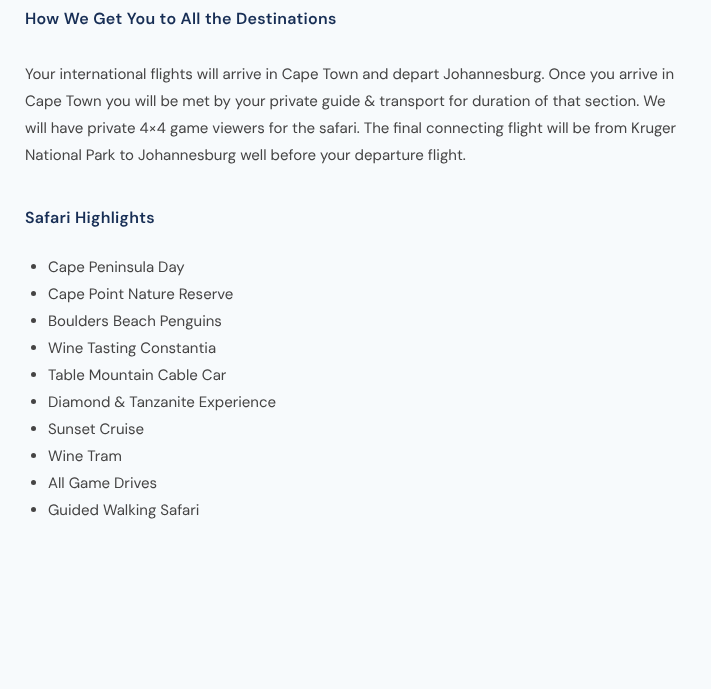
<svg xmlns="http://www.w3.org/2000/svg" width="711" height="689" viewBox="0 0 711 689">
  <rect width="100%" height="100%" fill="rgb(247,250,252)"/>
  <text x="25" y="24" font-family="DM Sans" font-size="16" font-weight="600" letter-spacing="0.3" fill="rgb(23,46,85)">How We Get You to All the Destinations</text>
  <g font-family="DM Sans" font-size="15" fill="rgb(69,68,68)">
    <text>
      <tspan x="25" y="79">Your international flights will arrive in Cape Town and depart Johannesburg. Once you arrive in</tspan>
      <tspan x="25" y="106">Cape Town you will be met by your private guide &amp; transport for duration of that section. We</tspan>
      <tspan x="25" y="133">will have private 4×4 game viewers for the safari. The final connecting flight will be from Kruger</tspan>
      <tspan x="25" y="160">National Park to Johannesburg well before your departure flight.</tspan>
    </text>
  </g>
  <text x="25" y="223" font-family="DM Sans" font-size="16" font-weight="600" letter-spacing="0.3" fill="rgb(23,46,85)">Safari Highlights</text>
  <circle cx="33.5" cy="266.5" r="2.5" fill="rgb(69,68,68)"/>
  <text x="48" y="272" font-family="DM Sans" font-size="15" fill="rgb(69,68,68)">Cape Peninsula Day</text>
  <circle cx="33.5" cy="293.5" r="2.5" fill="rgb(69,68,68)"/>
  <text x="48" y="299" font-family="DM Sans" font-size="15" fill="rgb(69,68,68)">Cape Point Nature Reserve</text>
  <circle cx="33.5" cy="320.5" r="2.5" fill="rgb(69,68,68)"/>
  <text x="48" y="326" font-family="DM Sans" font-size="15" fill="rgb(69,68,68)">Boulders Beach Penguins</text>
  <circle cx="33.5" cy="347.5" r="2.5" fill="rgb(69,68,68)"/>
  <text x="48" y="353" font-family="DM Sans" font-size="15" fill="rgb(69,68,68)">Wine Tasting Constantia</text>
  <circle cx="33.5" cy="374.5" r="2.5" fill="rgb(69,68,68)"/>
  <text x="48" y="380" font-family="DM Sans" font-size="15" fill="rgb(69,68,68)">Table Mountain Cable Car</text>
  <circle cx="33.5" cy="401.5" r="2.5" fill="rgb(69,68,68)"/>
  <text x="48" y="407" font-family="DM Sans" font-size="15" fill="rgb(69,68,68)">Diamond &amp; Tanzanite Experience</text>
  <circle cx="33.5" cy="428.5" r="2.5" fill="rgb(69,68,68)"/>
  <text x="48" y="434" font-family="DM Sans" font-size="15" fill="rgb(69,68,68)">Sunset Cruise</text>
  <circle cx="33.5" cy="455.5" r="2.5" fill="rgb(69,68,68)"/>
  <text x="48" y="461" font-family="DM Sans" font-size="15" fill="rgb(69,68,68)">Wine Tram</text>
  <circle cx="33.5" cy="482.5" r="2.5" fill="rgb(69,68,68)"/>
  <text x="48" y="488" font-family="DM Sans" font-size="15" fill="rgb(69,68,68)">All Game Drives</text>
  <circle cx="33.5" cy="509.5" r="2.5" fill="rgb(69,68,68)"/>
  <text x="48" y="515" font-family="DM Sans" font-size="15" fill="rgb(69,68,68)">Guided Walking Safari</text>
</svg>
